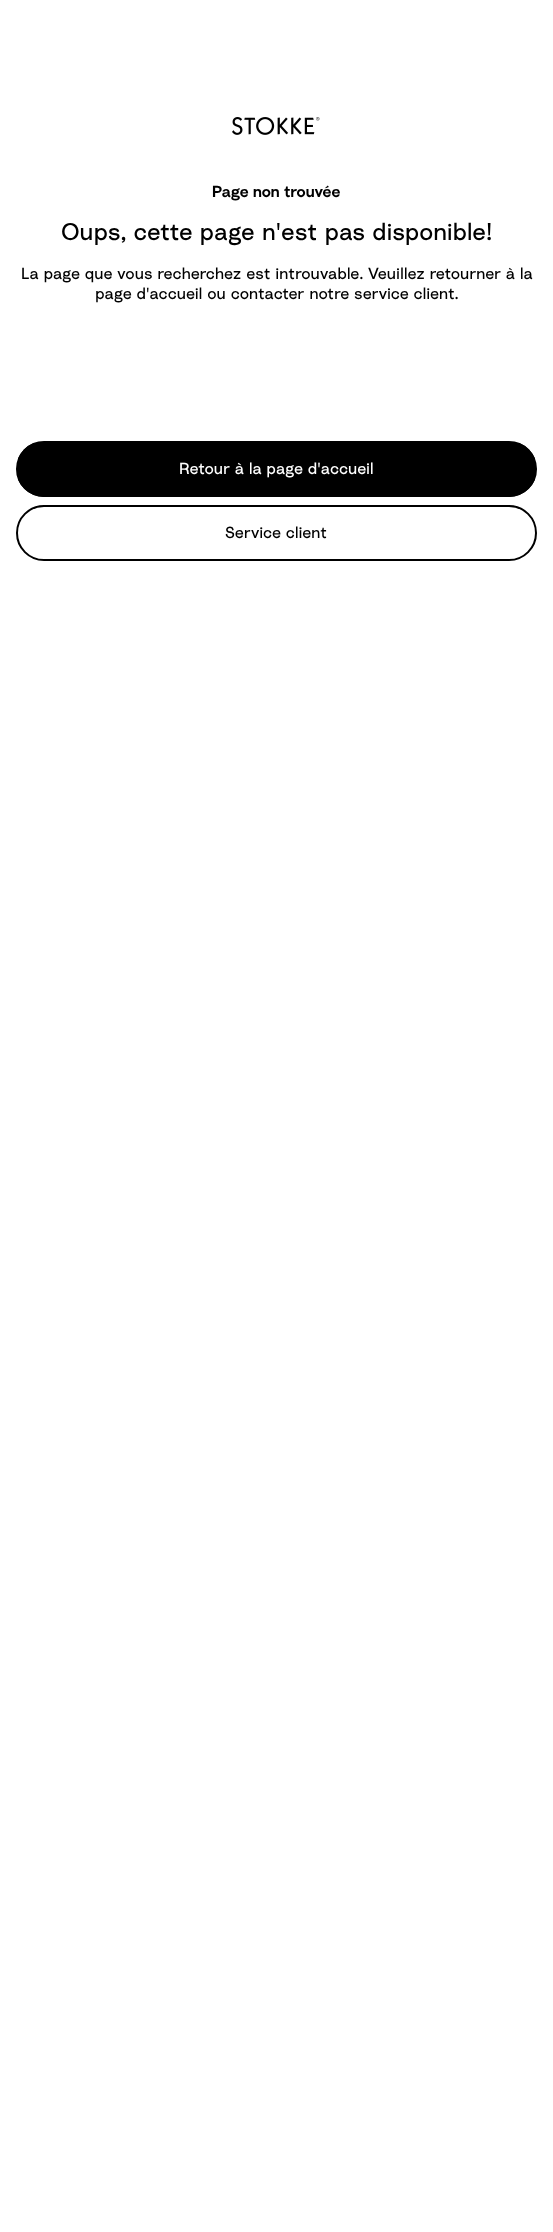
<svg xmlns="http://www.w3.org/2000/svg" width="553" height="2232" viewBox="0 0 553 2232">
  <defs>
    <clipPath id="clip1"><rect x="16" y="441" width="521" height="56" rx="28"/></clipPath>
  </defs>
  <rect width="100%" height="100%" fill="rgb(255,255,255)"/>
  <image x="232" y="117" width="88" height="18" href="pic1.png"/>
  <text x="212" y="197" font-family="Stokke" font-size="16" font-weight="600" fill="rgb(0,0,0)">Page non trouvée</text>
  <text x="61" y="240" font-family="Stokke" font-size="24" fill="rgb(0,0,0)">Oups, cette page n'est pas disponible!</text>
  <g font-family="Stokke" font-size="16" fill="rgb(0,0,0)">
    <text x="21" y="279">La page que vous recherchez est introuvable. Veuillez retourner à la</text>
    <text x="95" y="299">page d'accueil ou contacter notre service client.</text>
  </g>
  <g clip-path="url(#clip1)">
    <rect x="18" y="443" width="517" height="54" fill="rgb(0,0,0)"/>
  </g>
  <rect x="17" y="442" width="519" height="54" rx="27" fill="none" stroke="rgb(0,0,0)" stroke-width="2"/>
  <text x="179" y="474" font-family="Stokke" font-size="16" fill="rgb(255,255,255)">Retour à la page d'accueil</text>
  <rect x="17" y="506" width="519" height="54" rx="27" fill="none" stroke="rgb(0,0,0)" stroke-width="2"/>
  <text x="225" y="538" font-family="Stokke" font-size="16" fill="rgb(0,0,0)">Service client</text>
</svg>
